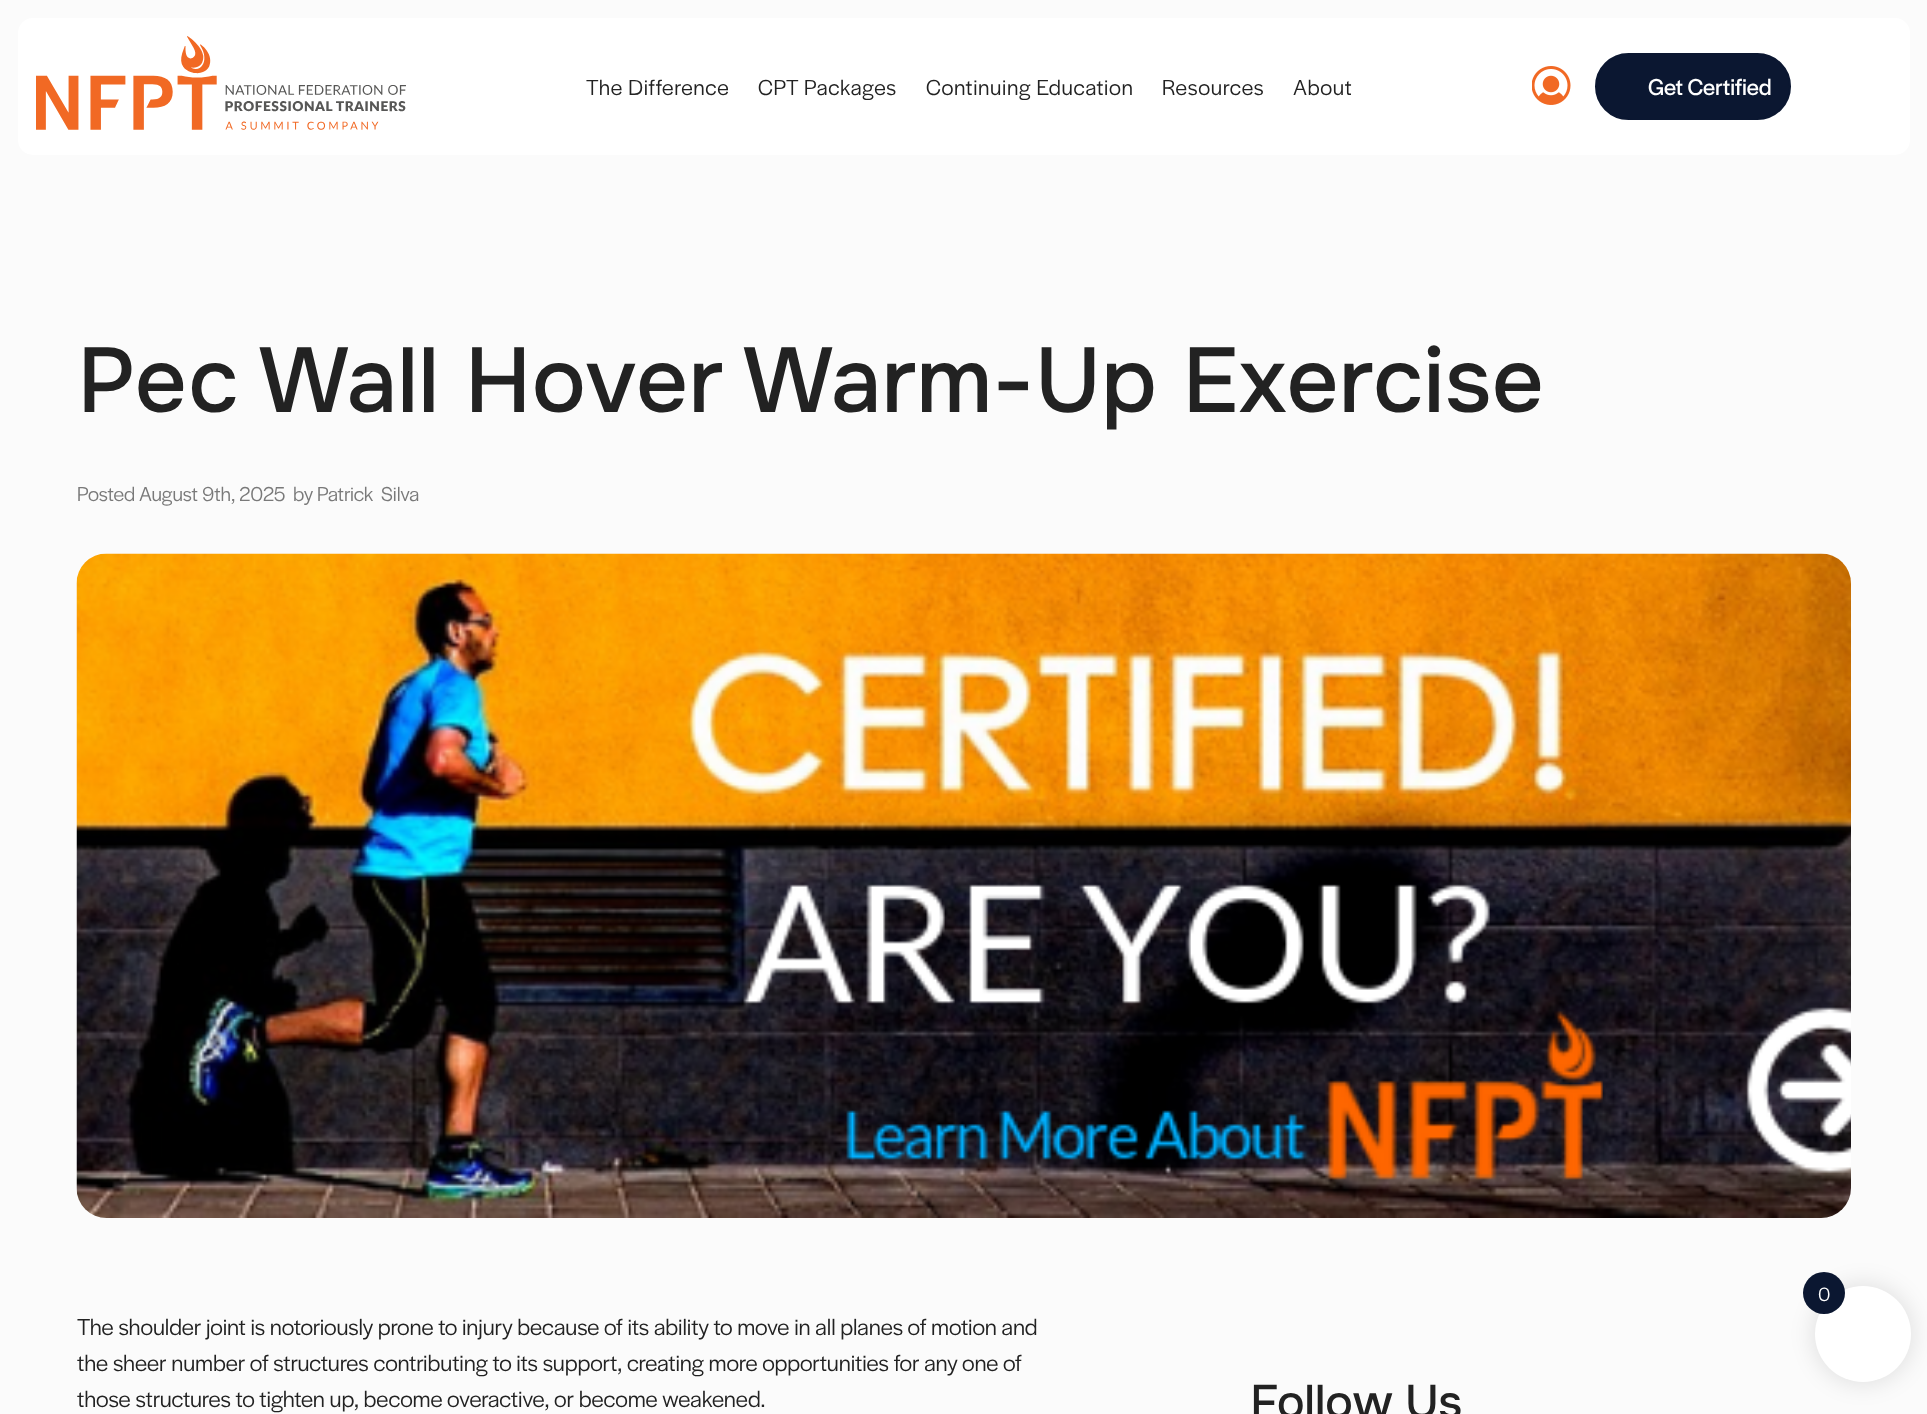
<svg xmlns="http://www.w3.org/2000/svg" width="1927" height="1414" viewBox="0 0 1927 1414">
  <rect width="100%" height="100%" fill="rgb(251,251,251)"/>
  <rect x="18" y="18" width="1892" height="137" rx="15" fill="rgb(255,255,255)"/>
  <image x="36" y="36" width="370" height="94" href="pic1.png"/>
  <g font-family="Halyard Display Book" font-size="22.75" letter-spacing="0.75" fill="rgb(34,34,34)">
    <text x="586" y="95">The Difference</text>
    <text x="758" y="95">CPT Packages</text>
    <text x="926" y="95">Continuing Education</text>
    <text x="1162" y="95">Resources</text>
    <text x="1293" y="95">About</text>
  </g>
  <image x="1532" y="66" width="39" height="39" href="pic2.png"/>
  <rect x="1596" y="54" width="194" height="65" rx="32.5" fill="rgb(11,23,49)" stroke="rgb(11,23,49)" stroke-width="2"/>
  <text x="1648" y="95" font-family="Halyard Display" font-size="24" fill="rgb(255,255,255)">Get Certified</text>
  <text x="77" y="412" font-family="Onest" font-size="91.6" font-weight="500" fill="rgb(34,34,34)">Pec Wall Hover Warm-Up Exercise</text>
  <g font-family="Halyard Display Book" font-size="21" fill="rgb(121,121,121)">
    <text x="77" y="501">Posted August 9th, 2025</text>
    <text x="293" y="501">by Patrick</text>
    <text x="381" y="501">Silva</text>
  </g>
  <image x="76" y="553" width="1775" height="665" href="pic3.png"/>
  <g font-family="Halyard Display Book" font-size="24" fill="rgb(34,34,34)">
    <text>
      <tspan x="77" y="1335">The shoulder joint is notoriously prone to injury because of its ability to move in all planes of motion and</tspan>
      <tspan x="77" y="1371">the sheer number of structures contributing to its support, creating more opportunities for any one of</tspan>
      <tspan x="77" y="1407">those structures to tighten up, become overactive, or become weakened.</tspan>
    </text>
  </g>
  <text x="1250" y="1418" font-family="Onest" font-size="47" font-weight="500" letter-spacing="-0.4" fill="rgb(34,34,34)">Follow Us</text>
  <rect x="1812" y="1283" width="102" height="102" rx="51" fill="rgba(0,0,0,0.1)" filter="blur(11px)"/>
  <circle cx="1863" cy="1334" r="48" fill="rgb(255,255,255)"/>
  <circle cx="1824" cy="1293" r="21" fill="rgb(11,23,49)"/>
  <text x="1818" y="1301" font-family="Halyard Display Book" font-size="20" fill="rgb(255,255,255)">0</text>
</svg>
